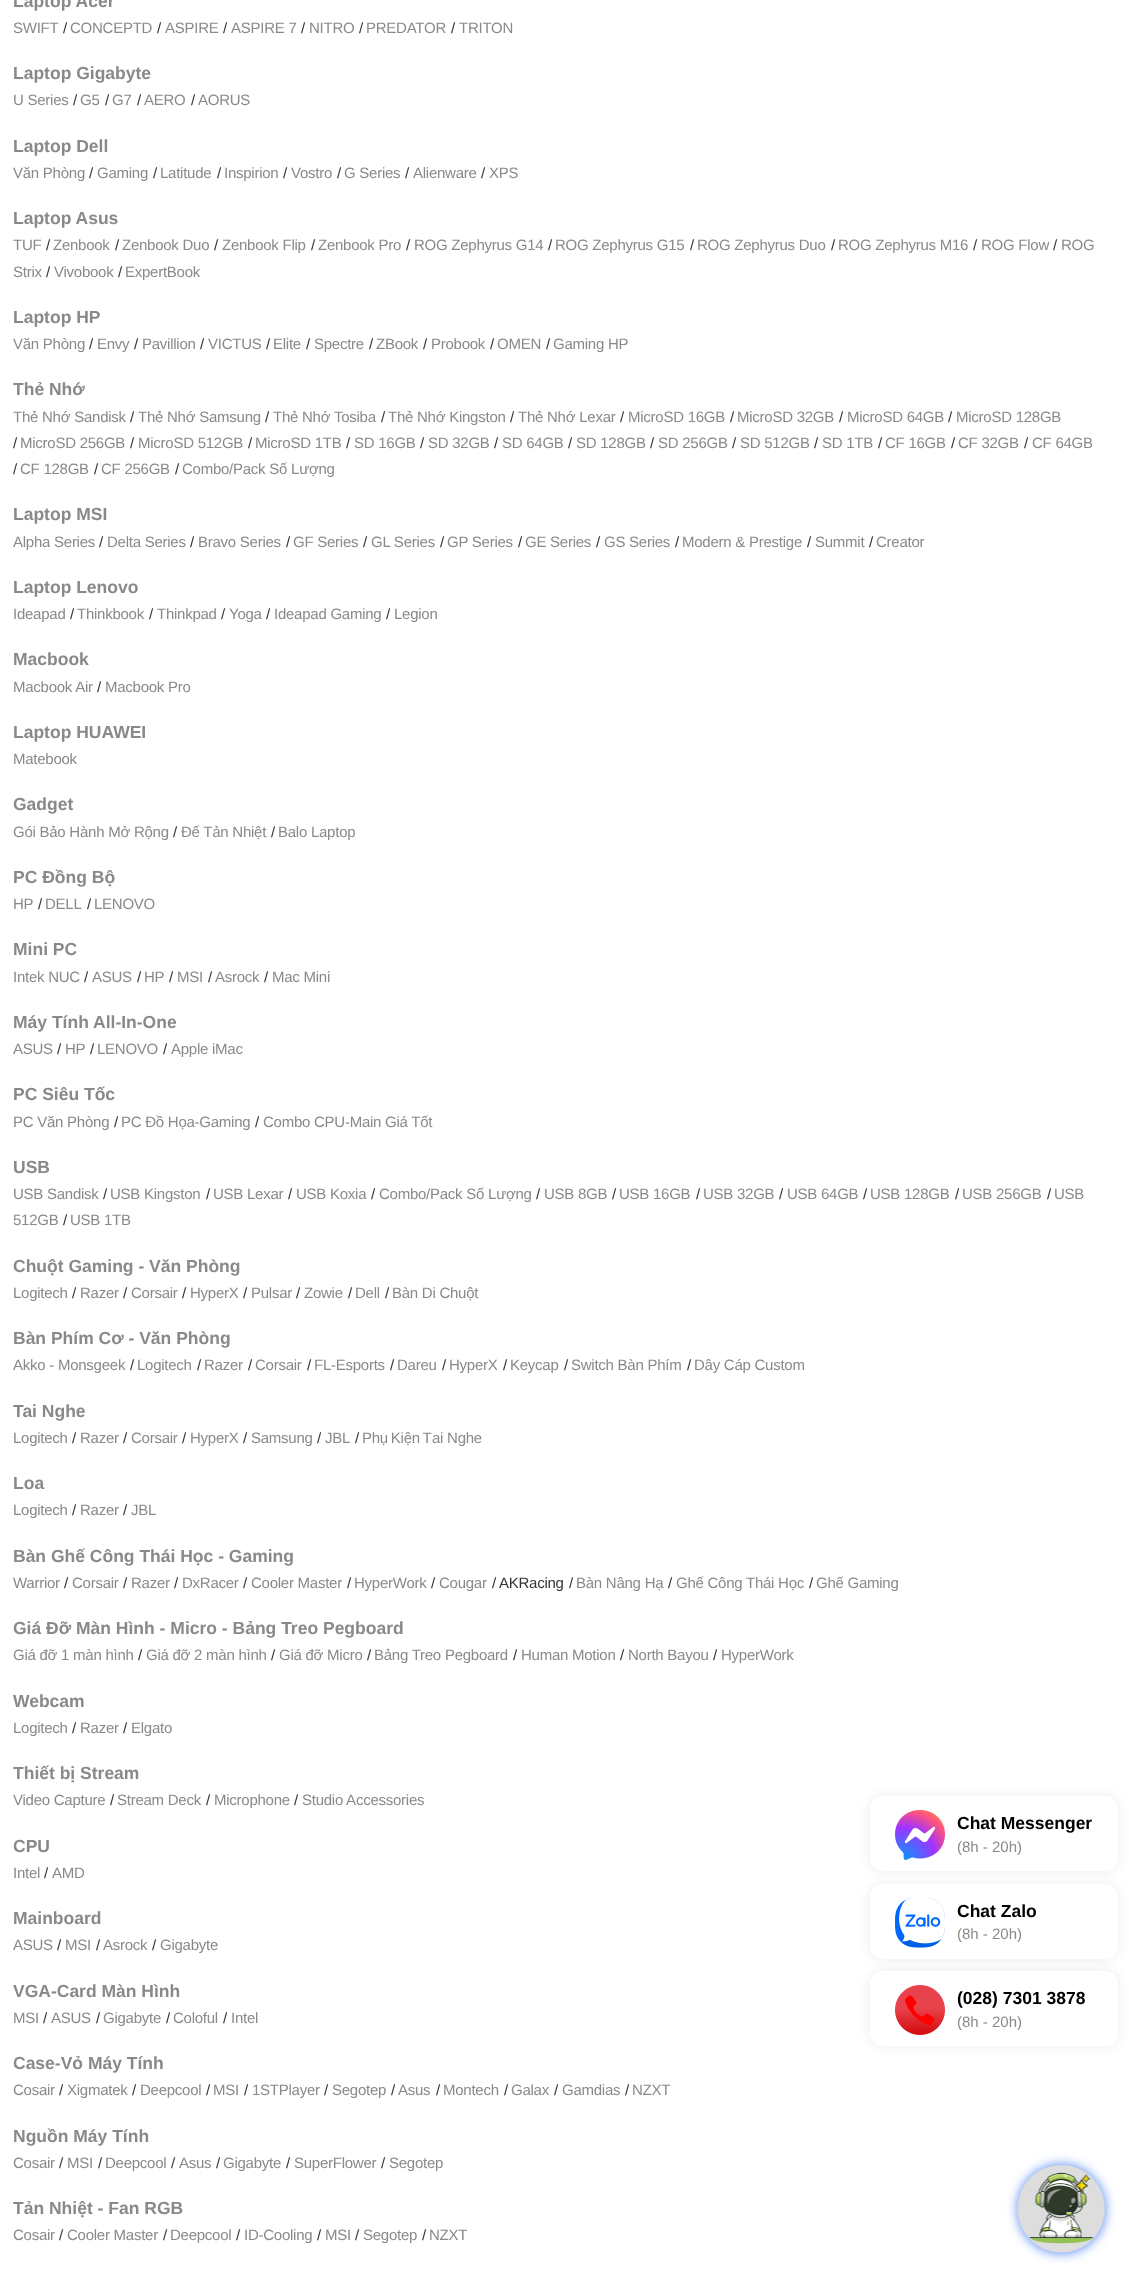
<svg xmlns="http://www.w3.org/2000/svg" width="1129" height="2277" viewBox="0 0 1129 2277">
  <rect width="100%" height="100%" fill="rgb(255,255,255)"/>
  <text x="13" y="7" font-family="Liberation Sans" font-size="17.5" font-weight="bold" fill="rgb(137,137,137)">Laptop Acer</text>
  <text x="13" y="33" font-family="Liberation Sans" font-size="15" letter-spacing="-0.25" fill="rgb(137,137,137)">SWIFT</text>
  <text x="63" y="33" font-family="Liberation Sans" font-size="15" letter-spacing="-0.25" fill="rgb(51,51,51)">/</text>
  <text x="70" y="33" font-family="Liberation Sans" font-size="15" letter-spacing="-0.25" fill="rgb(137,137,137)">CONCEPTD</text>
  <text x="157" y="33" font-family="Liberation Sans" font-size="15" letter-spacing="-0.25" fill="rgb(51,51,51)">/</text>
  <text x="165" y="33" font-family="Liberation Sans" font-size="15" letter-spacing="-0.25" fill="rgb(137,137,137)">ASPIRE</text>
  <text x="223" y="33" font-family="Liberation Sans" font-size="15" letter-spacing="-0.25" fill="rgb(51,51,51)">/</text>
  <text x="231" y="33" font-family="Liberation Sans" font-size="15" letter-spacing="-0.25" fill="rgb(137,137,137)">ASPIRE 7</text>
  <text x="301" y="33" font-family="Liberation Sans" font-size="15" letter-spacing="-0.25" fill="rgb(51,51,51)">/</text>
  <text x="309" y="33" font-family="Liberation Sans" font-size="15" letter-spacing="-0.25" fill="rgb(137,137,137)">NITRO</text>
  <text x="359" y="33" font-family="Liberation Sans" font-size="15" letter-spacing="-0.25" fill="rgb(51,51,51)">/</text>
  <text x="366" y="33" font-family="Liberation Sans" font-size="15" letter-spacing="-0.25" fill="rgb(137,137,137)">PREDATOR</text>
  <text x="451" y="33" font-family="Liberation Sans" font-size="15" letter-spacing="-0.25" fill="rgb(51,51,51)">/</text>
  <text x="459" y="33" font-family="Liberation Sans" font-size="15" letter-spacing="-0.25" fill="rgb(137,137,137)">TRITON</text>
  <text x="13" y="79" font-family="Liberation Sans" font-size="17.5" font-weight="bold" fill="rgb(137,137,137)">Laptop Gigabyte</text>
  <text x="13" y="105" font-family="Liberation Sans" font-size="15" letter-spacing="-0.25" fill="rgb(137,137,137)">U Series</text>
  <text x="73" y="105" font-family="Liberation Sans" font-size="15" letter-spacing="-0.25" fill="rgb(51,51,51)">/</text>
  <text x="80" y="105" font-family="Liberation Sans" font-size="15" letter-spacing="-0.25" fill="rgb(137,137,137)">G5</text>
  <text x="105" y="105" font-family="Liberation Sans" font-size="15" letter-spacing="-0.25" fill="rgb(51,51,51)">/</text>
  <text x="112" y="105" font-family="Liberation Sans" font-size="15" letter-spacing="-0.25" fill="rgb(137,137,137)">G7</text>
  <text x="137" y="105" font-family="Liberation Sans" font-size="15" letter-spacing="-0.25" fill="rgb(51,51,51)">/</text>
  <text x="144" y="105" font-family="Liberation Sans" font-size="15" letter-spacing="-0.25" fill="rgb(137,137,137)">AERO</text>
  <text x="191" y="105" font-family="Liberation Sans" font-size="15" letter-spacing="-0.25" fill="rgb(51,51,51)">/</text>
  <text x="198" y="105" font-family="Liberation Sans" font-size="15" letter-spacing="-0.25" fill="rgb(137,137,137)">AORUS</text>
  <text x="13" y="152" font-family="Liberation Sans" font-size="17.5" font-weight="bold" fill="rgb(137,137,137)">Laptop Dell</text>
  <text x="13" y="178" font-family="Liberation Sans" font-size="15" letter-spacing="-0.25" fill="rgb(137,137,137)">Văn Phòng</text>
  <text x="89" y="178" font-family="Liberation Sans" font-size="15" letter-spacing="-0.25" fill="rgb(51,51,51)">/</text>
  <text x="97" y="178" font-family="Liberation Sans" font-size="15" letter-spacing="-0.25" fill="rgb(137,137,137)">Gaming</text>
  <text x="153" y="178" font-family="Liberation Sans" font-size="15" letter-spacing="-0.25" fill="rgb(51,51,51)">/</text>
  <text x="160" y="178" font-family="Liberation Sans" font-size="15" letter-spacing="-0.25" fill="rgb(137,137,137)">Latitude</text>
  <text x="217" y="178" font-family="Liberation Sans" font-size="15" letter-spacing="-0.25" fill="rgb(51,51,51)">/</text>
  <text x="224" y="178" font-family="Liberation Sans" font-size="15" letter-spacing="-0.25" fill="rgb(137,137,137)">Inspirion</text>
  <text x="283" y="178" font-family="Liberation Sans" font-size="15" letter-spacing="-0.25" fill="rgb(51,51,51)">/</text>
  <text x="291" y="178" font-family="Liberation Sans" font-size="15" letter-spacing="-0.25" fill="rgb(137,137,137)">Vostro</text>
  <text x="337" y="178" font-family="Liberation Sans" font-size="15" letter-spacing="-0.25" fill="rgb(51,51,51)">/</text>
  <text x="344" y="178" font-family="Liberation Sans" font-size="15" letter-spacing="-0.25" fill="rgb(137,137,137)">G Series</text>
  <text x="405" y="178" font-family="Liberation Sans" font-size="15" letter-spacing="-0.25" fill="rgb(51,51,51)">/</text>
  <text x="413" y="178" font-family="Liberation Sans" font-size="15" letter-spacing="-0.25" fill="rgb(137,137,137)">Alienware</text>
  <text x="481" y="178" font-family="Liberation Sans" font-size="15" letter-spacing="-0.25" fill="rgb(51,51,51)">/</text>
  <text x="489" y="178" font-family="Liberation Sans" font-size="15" letter-spacing="-0.25" fill="rgb(137,137,137)">XPS</text>
  <text x="13" y="224" font-family="Liberation Sans" font-size="17.5" font-weight="bold" fill="rgb(137,137,137)">Laptop Asus</text>
  <text x="13" y="250" font-family="Liberation Sans" font-size="15" letter-spacing="-0.25" fill="rgb(137,137,137)">TUF</text>
  <text x="1053" y="250" font-family="Liberation Sans" font-size="15" letter-spacing="-0.25" fill="rgb(51,51,51)">/</text>
  <g font-family="Liberation Sans" font-size="15" letter-spacing="-0.25" fill="rgb(137,137,137)">
    <text x="1061" y="250">ROG</text>
    <text x="13" y="277">Strix</text>
  </g>
  <text x="46" y="250" font-family="Liberation Sans" font-size="15" letter-spacing="-0.25" fill="rgb(51,51,51)">/</text>
  <text x="53" y="250" font-family="Liberation Sans" font-size="15" letter-spacing="-0.25" fill="rgb(137,137,137)">Zenbook</text>
  <text x="115" y="250" font-family="Liberation Sans" font-size="15" letter-spacing="-0.25" fill="rgb(51,51,51)">/</text>
  <text x="122" y="250" font-family="Liberation Sans" font-size="15" letter-spacing="-0.25" fill="rgb(137,137,137)">Zenbook Duo</text>
  <text x="214" y="250" font-family="Liberation Sans" font-size="15" letter-spacing="-0.25" fill="rgb(51,51,51)">/</text>
  <text x="222" y="250" font-family="Liberation Sans" font-size="15" letter-spacing="-0.25" fill="rgb(137,137,137)">Zenbook Flip</text>
  <text x="311" y="250" font-family="Liberation Sans" font-size="15" letter-spacing="-0.25" fill="rgb(51,51,51)">/</text>
  <text x="318" y="250" font-family="Liberation Sans" font-size="15" letter-spacing="-0.25" fill="rgb(137,137,137)">Zenbook Pro</text>
  <text x="406" y="250" font-family="Liberation Sans" font-size="15" letter-spacing="-0.25" fill="rgb(51,51,51)">/</text>
  <text x="414" y="250" font-family="Liberation Sans" font-size="15" letter-spacing="-0.25" fill="rgb(137,137,137)">ROG Zephyrus G14</text>
  <text x="548" y="250" font-family="Liberation Sans" font-size="15" letter-spacing="-0.25" fill="rgb(51,51,51)">/</text>
  <text x="555" y="250" font-family="Liberation Sans" font-size="15" letter-spacing="-0.25" fill="rgb(137,137,137)">ROG Zephyrus G15</text>
  <text x="690" y="250" font-family="Liberation Sans" font-size="15" letter-spacing="-0.25" fill="rgb(51,51,51)">/</text>
  <text x="697" y="250" font-family="Liberation Sans" font-size="15" letter-spacing="-0.25" fill="rgb(137,137,137)">ROG Zephyrus Duo</text>
  <text x="831" y="250" font-family="Liberation Sans" font-size="15" letter-spacing="-0.25" fill="rgb(51,51,51)">/</text>
  <text x="838" y="250" font-family="Liberation Sans" font-size="15" letter-spacing="-0.25" fill="rgb(137,137,137)">ROG Zephyrus M16</text>
  <text x="973" y="250" font-family="Liberation Sans" font-size="15" letter-spacing="-0.25" fill="rgb(51,51,51)">/</text>
  <text x="981" y="250" font-family="Liberation Sans" font-size="15" letter-spacing="-0.25" fill="rgb(137,137,137)">ROG Flow</text>
  <text x="46" y="277" font-family="Liberation Sans" font-size="15" letter-spacing="-0.25" fill="rgb(51,51,51)">/</text>
  <text x="54" y="277" font-family="Liberation Sans" font-size="15" letter-spacing="-0.25" fill="rgb(137,137,137)">Vivobook</text>
  <text x="118" y="277" font-family="Liberation Sans" font-size="15" letter-spacing="-0.25" fill="rgb(51,51,51)">/</text>
  <text x="125" y="277" font-family="Liberation Sans" font-size="15" letter-spacing="-0.25" fill="rgb(137,137,137)">ExpertBook</text>
  <text x="13" y="323" font-family="Liberation Sans" font-size="17.5" font-weight="bold" fill="rgb(137,137,137)">Laptop HP</text>
  <text x="13" y="349" font-family="Liberation Sans" font-size="15" letter-spacing="-0.25" fill="rgb(137,137,137)">Văn Phòng</text>
  <text x="89" y="349" font-family="Liberation Sans" font-size="15" letter-spacing="-0.25" fill="rgb(51,51,51)">/</text>
  <text x="97" y="349" font-family="Liberation Sans" font-size="15" letter-spacing="-0.25" fill="rgb(137,137,137)">Envy</text>
  <text x="134" y="349" font-family="Liberation Sans" font-size="15" letter-spacing="-0.25" fill="rgb(51,51,51)">/</text>
  <text x="142" y="349" font-family="Liberation Sans" font-size="15" letter-spacing="-0.25" fill="rgb(137,137,137)">Pavillion</text>
  <text x="200" y="349" font-family="Liberation Sans" font-size="15" letter-spacing="-0.25" fill="rgb(51,51,51)">/</text>
  <text x="208" y="349" font-family="Liberation Sans" font-size="15" letter-spacing="-0.25" fill="rgb(137,137,137)">VICTUS</text>
  <text x="266" y="349" font-family="Liberation Sans" font-size="15" letter-spacing="-0.25" fill="rgb(51,51,51)">/</text>
  <text x="273" y="349" font-family="Liberation Sans" font-size="15" letter-spacing="-0.25" fill="rgb(137,137,137)">Elite</text>
  <text x="306" y="349" font-family="Liberation Sans" font-size="15" letter-spacing="-0.25" fill="rgb(51,51,51)">/</text>
  <text x="314" y="349" font-family="Liberation Sans" font-size="15" letter-spacing="-0.25" fill="rgb(137,137,137)">Spectre</text>
  <text x="369" y="349" font-family="Liberation Sans" font-size="15" letter-spacing="-0.25" fill="rgb(51,51,51)">/</text>
  <text x="376" y="349" font-family="Liberation Sans" font-size="15" letter-spacing="-0.25" fill="rgb(137,137,137)">ZBook</text>
  <text x="423" y="349" font-family="Liberation Sans" font-size="15" letter-spacing="-0.25" fill="rgb(51,51,51)">/</text>
  <text x="431" y="349" font-family="Liberation Sans" font-size="15" letter-spacing="-0.25" fill="rgb(137,137,137)">Probook</text>
  <text x="490" y="349" font-family="Liberation Sans" font-size="15" letter-spacing="-0.25" fill="rgb(51,51,51)">/</text>
  <text x="497" y="349" font-family="Liberation Sans" font-size="15" letter-spacing="-0.25" fill="rgb(137,137,137)">OMEN</text>
  <text x="546" y="349" font-family="Liberation Sans" font-size="15" letter-spacing="-0.25" fill="rgb(51,51,51)">/</text>
  <text x="553" y="349" font-family="Liberation Sans" font-size="15" letter-spacing="-0.25" fill="rgb(137,137,137)">Gaming HP</text>
  <text x="13" y="395" font-family="Liberation Sans" font-size="17.5" font-weight="bold" fill="rgb(137,137,137)">Thẻ Nhớ</text>
  <text x="13" y="422" font-family="Liberation Sans" font-size="15" letter-spacing="-0.25" fill="rgb(137,137,137)">Thẻ Nhớ Sandisk</text>
  <text x="130" y="422" font-family="Liberation Sans" font-size="15" letter-spacing="-0.25" fill="rgb(51,51,51)">/</text>
  <text x="138" y="422" font-family="Liberation Sans" font-size="15" letter-spacing="-0.25" fill="rgb(137,137,137)">Thẻ Nhớ Samsung</text>
  <text x="265" y="422" font-family="Liberation Sans" font-size="15" letter-spacing="-0.25" fill="rgb(51,51,51)">/</text>
  <text x="273" y="422" font-family="Liberation Sans" font-size="15" letter-spacing="-0.25" fill="rgb(137,137,137)">Thẻ Nhớ Tosiba</text>
  <text x="381" y="422" font-family="Liberation Sans" font-size="15" letter-spacing="-0.25" fill="rgb(51,51,51)">/</text>
  <text x="388" y="422" font-family="Liberation Sans" font-size="15" letter-spacing="-0.25" fill="rgb(137,137,137)">Thẻ Nhớ Kingston</text>
  <text x="510" y="422" font-family="Liberation Sans" font-size="15" letter-spacing="-0.25" fill="rgb(51,51,51)">/</text>
  <text x="518" y="422" font-family="Liberation Sans" font-size="15" letter-spacing="-0.25" fill="rgb(137,137,137)">Thẻ Nhớ Lexar</text>
  <text x="620" y="422" font-family="Liberation Sans" font-size="15" letter-spacing="-0.25" fill="rgb(51,51,51)">/</text>
  <text x="628" y="422" font-family="Liberation Sans" font-size="15" letter-spacing="-0.25" fill="rgb(137,137,137)">MicroSD 16GB</text>
  <text x="730" y="422" font-family="Liberation Sans" font-size="15" letter-spacing="-0.25" fill="rgb(51,51,51)">/</text>
  <text x="737" y="422" font-family="Liberation Sans" font-size="15" letter-spacing="-0.25" fill="rgb(137,137,137)">MicroSD 32GB</text>
  <text x="839" y="422" font-family="Liberation Sans" font-size="15" letter-spacing="-0.25" fill="rgb(51,51,51)">/</text>
  <text x="847" y="422" font-family="Liberation Sans" font-size="15" letter-spacing="-0.25" fill="rgb(137,137,137)">MicroSD 64GB</text>
  <text x="948" y="422" font-family="Liberation Sans" font-size="15" letter-spacing="-0.25" fill="rgb(51,51,51)">/</text>
  <text x="956" y="422" font-family="Liberation Sans" font-size="15" letter-spacing="-0.25" fill="rgb(137,137,137)">MicroSD 128GB</text>
  <text x="13" y="448" font-family="Liberation Sans" font-size="15" letter-spacing="-0.25" fill="rgb(51,51,51)">/</text>
  <text x="20" y="448" font-family="Liberation Sans" font-size="15" letter-spacing="-0.25" fill="rgb(137,137,137)">MicroSD 256GB</text>
  <text x="130" y="448" font-family="Liberation Sans" font-size="15" letter-spacing="-0.25" fill="rgb(51,51,51)">/</text>
  <text x="138" y="448" font-family="Liberation Sans" font-size="15" letter-spacing="-0.25" fill="rgb(137,137,137)">MicroSD 512GB</text>
  <text x="248" y="448" font-family="Liberation Sans" font-size="15" letter-spacing="-0.25" fill="rgb(51,51,51)">/</text>
  <text x="255" y="448" font-family="Liberation Sans" font-size="15" letter-spacing="-0.25" fill="rgb(137,137,137)">MicroSD 1TB</text>
  <text x="346" y="448" font-family="Liberation Sans" font-size="15" letter-spacing="-0.25" fill="rgb(51,51,51)">/</text>
  <text x="354" y="448" font-family="Liberation Sans" font-size="15" letter-spacing="-0.25" fill="rgb(137,137,137)">SD 16GB</text>
  <text x="420" y="448" font-family="Liberation Sans" font-size="15" letter-spacing="-0.25" fill="rgb(51,51,51)">/</text>
  <text x="428" y="448" font-family="Liberation Sans" font-size="15" letter-spacing="-0.25" fill="rgb(137,137,137)">SD 32GB</text>
  <text x="494" y="448" font-family="Liberation Sans" font-size="15" letter-spacing="-0.25" fill="rgb(51,51,51)">/</text>
  <text x="502" y="448" font-family="Liberation Sans" font-size="15" letter-spacing="-0.25" fill="rgb(137,137,137)">SD 64GB</text>
  <text x="568" y="448" font-family="Liberation Sans" font-size="15" letter-spacing="-0.25" fill="rgb(51,51,51)">/</text>
  <text x="576" y="448" font-family="Liberation Sans" font-size="15" letter-spacing="-0.25" fill="rgb(137,137,137)">SD 128GB</text>
  <text x="650" y="448" font-family="Liberation Sans" font-size="15" letter-spacing="-0.25" fill="rgb(51,51,51)">/</text>
  <text x="658" y="448" font-family="Liberation Sans" font-size="15" letter-spacing="-0.25" fill="rgb(137,137,137)">SD 256GB</text>
  <text x="732" y="448" font-family="Liberation Sans" font-size="15" letter-spacing="-0.25" fill="rgb(51,51,51)">/</text>
  <text x="740" y="448" font-family="Liberation Sans" font-size="15" letter-spacing="-0.25" fill="rgb(137,137,137)">SD 512GB</text>
  <text x="814" y="448" font-family="Liberation Sans" font-size="15" letter-spacing="-0.25" fill="rgb(51,51,51)">/</text>
  <text x="822" y="448" font-family="Liberation Sans" font-size="15" letter-spacing="-0.25" fill="rgb(137,137,137)">SD 1TB</text>
  <text x="878" y="448" font-family="Liberation Sans" font-size="15" letter-spacing="-0.25" fill="rgb(51,51,51)">/</text>
  <text x="885" y="448" font-family="Liberation Sans" font-size="15" letter-spacing="-0.25" fill="rgb(137,137,137)">CF 16GB</text>
  <text x="951" y="448" font-family="Liberation Sans" font-size="15" letter-spacing="-0.25" fill="rgb(51,51,51)">/</text>
  <text x="958" y="448" font-family="Liberation Sans" font-size="15" letter-spacing="-0.25" fill="rgb(137,137,137)">CF 32GB</text>
  <text x="1024" y="448" font-family="Liberation Sans" font-size="15" letter-spacing="-0.25" fill="rgb(51,51,51)">/</text>
  <text x="1032" y="448" font-family="Liberation Sans" font-size="15" letter-spacing="-0.25" fill="rgb(137,137,137)">CF 64GB</text>
  <text x="13" y="474" font-family="Liberation Sans" font-size="15" letter-spacing="-0.25" fill="rgb(51,51,51)">/</text>
  <text x="20" y="474" font-family="Liberation Sans" font-size="15" letter-spacing="-0.25" fill="rgb(137,137,137)">CF 128GB</text>
  <text x="94" y="474" font-family="Liberation Sans" font-size="15" letter-spacing="-0.25" fill="rgb(51,51,51)">/</text>
  <text x="101" y="474" font-family="Liberation Sans" font-size="15" letter-spacing="-0.25" fill="rgb(137,137,137)">CF 256GB</text>
  <text x="175" y="474" font-family="Liberation Sans" font-size="15" letter-spacing="-0.25" fill="rgb(51,51,51)">/</text>
  <text x="182" y="474" font-family="Liberation Sans" font-size="15" letter-spacing="-0.25" fill="rgb(137,137,137)">Combo/Pack Số Lượng</text>
  <text x="13" y="520" font-family="Liberation Sans" font-size="17.5" font-weight="bold" fill="rgb(137,137,137)">Laptop MSI</text>
  <text x="13" y="547" font-family="Liberation Sans" font-size="15" letter-spacing="-0.25" fill="rgb(137,137,137)">Alpha Series</text>
  <text x="99" y="547" font-family="Liberation Sans" font-size="15" letter-spacing="-0.25" fill="rgb(51,51,51)">/</text>
  <text x="107" y="547" font-family="Liberation Sans" font-size="15" letter-spacing="-0.25" fill="rgb(137,137,137)">Delta Series</text>
  <text x="190" y="547" font-family="Liberation Sans" font-size="15" letter-spacing="-0.25" fill="rgb(51,51,51)">/</text>
  <text x="198" y="547" font-family="Liberation Sans" font-size="15" letter-spacing="-0.25" fill="rgb(137,137,137)">Bravo Series</text>
  <text x="286" y="547" font-family="Liberation Sans" font-size="15" letter-spacing="-0.25" fill="rgb(51,51,51)">/</text>
  <text x="293" y="547" font-family="Liberation Sans" font-size="15" letter-spacing="-0.25" fill="rgb(137,137,137)">GF Series</text>
  <text x="363" y="547" font-family="Liberation Sans" font-size="15" letter-spacing="-0.25" fill="rgb(51,51,51)">/</text>
  <text x="371" y="547" font-family="Liberation Sans" font-size="15" letter-spacing="-0.25" fill="rgb(137,137,137)">GL Series</text>
  <text x="440" y="547" font-family="Liberation Sans" font-size="15" letter-spacing="-0.25" fill="rgb(51,51,51)">/</text>
  <text x="447" y="547" font-family="Liberation Sans" font-size="15" letter-spacing="-0.25" fill="rgb(137,137,137)">GP Series</text>
  <text x="518" y="547" font-family="Liberation Sans" font-size="15" letter-spacing="-0.25" fill="rgb(51,51,51)">/</text>
  <text x="525" y="547" font-family="Liberation Sans" font-size="15" letter-spacing="-0.25" fill="rgb(137,137,137)">GE Series</text>
  <text x="596" y="547" font-family="Liberation Sans" font-size="15" letter-spacing="-0.25" fill="rgb(51,51,51)">/</text>
  <text x="604" y="547" font-family="Liberation Sans" font-size="15" letter-spacing="-0.25" fill="rgb(137,137,137)">GS Series</text>
  <text x="675" y="547" font-family="Liberation Sans" font-size="15" letter-spacing="-0.25" fill="rgb(51,51,51)">/</text>
  <text x="682" y="547" font-family="Liberation Sans" font-size="15" letter-spacing="-0.25" fill="rgb(137,137,137)">Modern &amp; Prestige</text>
  <text x="807" y="547" font-family="Liberation Sans" font-size="15" letter-spacing="-0.25" fill="rgb(51,51,51)">/</text>
  <text x="815" y="547" font-family="Liberation Sans" font-size="15" letter-spacing="-0.25" fill="rgb(137,137,137)">Summit</text>
  <text x="869" y="547" font-family="Liberation Sans" font-size="15" letter-spacing="-0.25" fill="rgb(51,51,51)">/</text>
  <text x="876" y="547" font-family="Liberation Sans" font-size="15" letter-spacing="-0.25" fill="rgb(137,137,137)">Creator</text>
  <text x="13" y="593" font-family="Liberation Sans" font-size="17.5" font-weight="bold" fill="rgb(137,137,137)">Laptop Lenovo</text>
  <text x="13" y="619" font-family="Liberation Sans" font-size="15" letter-spacing="-0.25" fill="rgb(137,137,137)">Ideapad</text>
  <text x="70" y="619" font-family="Liberation Sans" font-size="15" letter-spacing="-0.25" fill="rgb(51,51,51)">/</text>
  <text x="77" y="619" font-family="Liberation Sans" font-size="15" letter-spacing="-0.25" fill="rgb(137,137,137)">Thinkbook</text>
  <text x="149" y="619" font-family="Liberation Sans" font-size="15" letter-spacing="-0.25" fill="rgb(51,51,51)">/</text>
  <text x="157" y="619" font-family="Liberation Sans" font-size="15" letter-spacing="-0.25" fill="rgb(137,137,137)">Thinkpad</text>
  <text x="221" y="619" font-family="Liberation Sans" font-size="15" letter-spacing="-0.25" fill="rgb(51,51,51)">/</text>
  <text x="229" y="619" font-family="Liberation Sans" font-size="15" letter-spacing="-0.25" fill="rgb(137,137,137)">Yoga</text>
  <text x="266" y="619" font-family="Liberation Sans" font-size="15" letter-spacing="-0.25" fill="rgb(51,51,51)">/</text>
  <text x="274" y="619" font-family="Liberation Sans" font-size="15" letter-spacing="-0.25" fill="rgb(137,137,137)">Ideapad Gaming</text>
  <text x="386" y="619" font-family="Liberation Sans" font-size="15" letter-spacing="-0.25" fill="rgb(51,51,51)">/</text>
  <text x="394" y="619" font-family="Liberation Sans" font-size="15" letter-spacing="-0.25" fill="rgb(137,137,137)">Legion</text>
  <text x="13" y="665" font-family="Liberation Sans" font-size="17.5" font-weight="bold" fill="rgb(137,137,137)">Macbook</text>
  <text x="13" y="692" font-family="Liberation Sans" font-size="15" letter-spacing="-0.25" fill="rgb(137,137,137)">Macbook Air</text>
  <text x="97" y="692" font-family="Liberation Sans" font-size="15" letter-spacing="-0.25" fill="rgb(51,51,51)">/</text>
  <text x="105" y="692" font-family="Liberation Sans" font-size="15" letter-spacing="-0.25" fill="rgb(137,137,137)">Macbook Pro</text>
  <text x="13" y="738" font-family="Liberation Sans" font-size="17.5" font-weight="bold" fill="rgb(137,137,137)">Laptop HUAWEI</text>
  <text x="13" y="764" font-family="Liberation Sans" font-size="15" letter-spacing="-0.25" fill="rgb(137,137,137)">Matebook</text>
  <text x="13" y="810" font-family="Liberation Sans" font-size="17.5" font-weight="bold" fill="rgb(137,137,137)">Gadget</text>
  <text x="13" y="837" font-family="Liberation Sans" font-size="15" letter-spacing="-0.25" fill="rgb(137,137,137)">Gói Bảo Hành Mở Rộng</text>
  <text x="173" y="837" font-family="Liberation Sans" font-size="15" letter-spacing="-0.25" fill="rgb(51,51,51)">/</text>
  <text x="181" y="837" font-family="Liberation Sans" font-size="15" letter-spacing="-0.25" fill="rgb(137,137,137)">Đế Tản Nhiệt</text>
  <text x="271" y="837" font-family="Liberation Sans" font-size="15" letter-spacing="-0.25" fill="rgb(51,51,51)">/</text>
  <text x="278" y="837" font-family="Liberation Sans" font-size="15" letter-spacing="-0.25" fill="rgb(137,137,137)">Balo Laptop</text>
  <text x="13" y="883" font-family="Liberation Sans" font-size="17.5" font-weight="bold" fill="rgb(137,137,137)">PC Đồng Bộ</text>
  <text x="13" y="909" font-family="Liberation Sans" font-size="15" letter-spacing="-0.25" fill="rgb(137,137,137)">HP</text>
  <text x="38" y="909" font-family="Liberation Sans" font-size="15" letter-spacing="-0.25" fill="rgb(51,51,51)">/</text>
  <text x="45" y="909" font-family="Liberation Sans" font-size="15" letter-spacing="-0.25" fill="rgb(137,137,137)">DELL</text>
  <text x="87" y="909" font-family="Liberation Sans" font-size="15" letter-spacing="-0.25" fill="rgb(51,51,51)">/</text>
  <text x="94" y="909" font-family="Liberation Sans" font-size="15" letter-spacing="-0.25" fill="rgb(137,137,137)">LENOVO</text>
  <text x="13" y="955" font-family="Liberation Sans" font-size="17.5" font-weight="bold" fill="rgb(137,137,137)">Mini PC</text>
  <text x="13" y="982" font-family="Liberation Sans" font-size="15" letter-spacing="-0.25" fill="rgb(137,137,137)">Intek NUC</text>
  <text x="84" y="982" font-family="Liberation Sans" font-size="15" letter-spacing="-0.25" fill="rgb(51,51,51)">/</text>
  <text x="92" y="982" font-family="Liberation Sans" font-size="15" letter-spacing="-0.25" fill="rgb(137,137,137)">ASUS</text>
  <text x="137" y="982" font-family="Liberation Sans" font-size="15" letter-spacing="-0.25" fill="rgb(51,51,51)">/</text>
  <text x="144" y="982" font-family="Liberation Sans" font-size="15" letter-spacing="-0.25" fill="rgb(137,137,137)">HP</text>
  <text x="169" y="982" font-family="Liberation Sans" font-size="15" letter-spacing="-0.25" fill="rgb(51,51,51)">/</text>
  <text x="177" y="982" font-family="Liberation Sans" font-size="15" letter-spacing="-0.25" fill="rgb(137,137,137)">MSI</text>
  <text x="208" y="982" font-family="Liberation Sans" font-size="15" letter-spacing="-0.25" fill="rgb(51,51,51)">/</text>
  <text x="215" y="982" font-family="Liberation Sans" font-size="15" letter-spacing="-0.25" fill="rgb(137,137,137)">Asrock</text>
  <text x="264" y="982" font-family="Liberation Sans" font-size="15" letter-spacing="-0.25" fill="rgb(51,51,51)">/</text>
  <text x="272" y="982" font-family="Liberation Sans" font-size="15" letter-spacing="-0.25" fill="rgb(137,137,137)">Mac Mini</text>
  <text x="13" y="1028" font-family="Liberation Sans" font-size="17.5" font-weight="bold" fill="rgb(137,137,137)">Máy Tính All-In-One</text>
  <text x="13" y="1054" font-family="Liberation Sans" font-size="15" letter-spacing="-0.25" fill="rgb(137,137,137)">ASUS</text>
  <text x="57" y="1054" font-family="Liberation Sans" font-size="15" letter-spacing="-0.25" fill="rgb(51,51,51)">/</text>
  <text x="65" y="1054" font-family="Liberation Sans" font-size="15" letter-spacing="-0.25" fill="rgb(137,137,137)">HP</text>
  <text x="90" y="1054" font-family="Liberation Sans" font-size="15" letter-spacing="-0.25" fill="rgb(51,51,51)">/</text>
  <text x="97" y="1054" font-family="Liberation Sans" font-size="15" letter-spacing="-0.25" fill="rgb(137,137,137)">LENOVO</text>
  <text x="163" y="1054" font-family="Liberation Sans" font-size="15" letter-spacing="-0.25" fill="rgb(51,51,51)">/</text>
  <text x="171" y="1054" font-family="Liberation Sans" font-size="15" letter-spacing="-0.25" fill="rgb(137,137,137)">Apple iMac</text>
  <text x="13" y="1100" font-family="Liberation Sans" font-size="17.5" font-weight="bold" fill="rgb(137,137,137)">PC Siêu Tốc</text>
  <text x="13" y="1127" font-family="Liberation Sans" font-size="15" letter-spacing="-0.25" fill="rgb(137,137,137)">PC Văn Phòng</text>
  <text x="114" y="1127" font-family="Liberation Sans" font-size="15" letter-spacing="-0.25" fill="rgb(51,51,51)">/</text>
  <text x="121" y="1127" font-family="Liberation Sans" font-size="15" letter-spacing="-0.25" fill="rgb(137,137,137)">PC Đồ Họa-Gaming</text>
  <text x="255" y="1127" font-family="Liberation Sans" font-size="15" letter-spacing="-0.25" fill="rgb(51,51,51)">/</text>
  <text x="263" y="1127" font-family="Liberation Sans" font-size="15" letter-spacing="-0.25" fill="rgb(137,137,137)">Combo CPU-Main Giá Tốt</text>
  <text x="13" y="1173" font-family="Liberation Sans" font-size="17.5" font-weight="bold" fill="rgb(137,137,137)">USB</text>
  <text x="13" y="1199" font-family="Liberation Sans" font-size="15" letter-spacing="-0.25" fill="rgb(137,137,137)">USB Sandisk</text>
  <text x="371" y="1199" font-family="Liberation Sans" font-size="15" letter-spacing="-0.25" fill="rgb(51,51,51)">/</text>
  <text x="379" y="1199" font-family="Liberation Sans" font-size="15" letter-spacing="-0.25" fill="rgb(137,137,137)">Combo/Pack Số Lượng</text>
  <text x="1047" y="1199" font-family="Liberation Sans" font-size="15" letter-spacing="-0.25" fill="rgb(51,51,51)">/</text>
  <g font-family="Liberation Sans" font-size="15" letter-spacing="-0.25" fill="rgb(137,137,137)">
    <text x="1054" y="1199">USB</text>
    <text x="13" y="1225">512GB</text>
  </g>
  <text x="103" y="1199" font-family="Liberation Sans" font-size="15" letter-spacing="-0.25" fill="rgb(51,51,51)">/</text>
  <text x="110" y="1199" font-family="Liberation Sans" font-size="15" letter-spacing="-0.25" fill="rgb(137,137,137)">USB Kingston</text>
  <text x="206" y="1199" font-family="Liberation Sans" font-size="15" letter-spacing="-0.25" fill="rgb(51,51,51)">/</text>
  <text x="213" y="1199" font-family="Liberation Sans" font-size="15" letter-spacing="-0.25" fill="rgb(137,137,137)">USB Lexar</text>
  <text x="288" y="1199" font-family="Liberation Sans" font-size="15" letter-spacing="-0.25" fill="rgb(51,51,51)">/</text>
  <text x="296" y="1199" font-family="Liberation Sans" font-size="15" letter-spacing="-0.25" fill="rgb(137,137,137)">USB Koxia</text>
  <text x="536" y="1199" font-family="Liberation Sans" font-size="15" letter-spacing="-0.25" fill="rgb(51,51,51)">/</text>
  <text x="544" y="1199" font-family="Liberation Sans" font-size="15" letter-spacing="-0.25" fill="rgb(137,137,137)">USB 8GB</text>
  <text x="612" y="1199" font-family="Liberation Sans" font-size="15" letter-spacing="-0.25" fill="rgb(51,51,51)">/</text>
  <text x="619" y="1199" font-family="Liberation Sans" font-size="15" letter-spacing="-0.25" fill="rgb(137,137,137)">USB 16GB</text>
  <text x="696" y="1199" font-family="Liberation Sans" font-size="15" letter-spacing="-0.25" fill="rgb(51,51,51)">/</text>
  <text x="703" y="1199" font-family="Liberation Sans" font-size="15" letter-spacing="-0.25" fill="rgb(137,137,137)">USB 32GB</text>
  <text x="779" y="1199" font-family="Liberation Sans" font-size="15" letter-spacing="-0.25" fill="rgb(51,51,51)">/</text>
  <text x="787" y="1199" font-family="Liberation Sans" font-size="15" letter-spacing="-0.25" fill="rgb(137,137,137)">USB 64GB</text>
  <text x="863" y="1199" font-family="Liberation Sans" font-size="15" letter-spacing="-0.25" fill="rgb(51,51,51)">/</text>
  <text x="870" y="1199" font-family="Liberation Sans" font-size="15" letter-spacing="-0.25" fill="rgb(137,137,137)">USB 128GB</text>
  <text x="955" y="1199" font-family="Liberation Sans" font-size="15" letter-spacing="-0.25" fill="rgb(51,51,51)">/</text>
  <text x="962" y="1199" font-family="Liberation Sans" font-size="15" letter-spacing="-0.25" fill="rgb(137,137,137)">USB 256GB</text>
  <text x="63" y="1225" font-family="Liberation Sans" font-size="15" letter-spacing="-0.25" fill="rgb(51,51,51)">/</text>
  <text x="70" y="1225" font-family="Liberation Sans" font-size="15" letter-spacing="-0.25" fill="rgb(137,137,137)">USB 1TB</text>
  <text x="13" y="1272" font-family="Liberation Sans" font-size="17.5" font-weight="bold" fill="rgb(137,137,137)">Chuột Gaming - Văn Phòng</text>
  <text x="13" y="1298" font-family="Liberation Sans" font-size="15" letter-spacing="-0.25" fill="rgb(137,137,137)">Logitech</text>
  <text x="72" y="1298" font-family="Liberation Sans" font-size="15" letter-spacing="-0.25" fill="rgb(51,51,51)">/</text>
  <text x="80" y="1298" font-family="Liberation Sans" font-size="15" letter-spacing="-0.25" fill="rgb(137,137,137)">Razer</text>
  <text x="123" y="1298" font-family="Liberation Sans" font-size="15" letter-spacing="-0.25" fill="rgb(51,51,51)">/</text>
  <text x="131" y="1298" font-family="Liberation Sans" font-size="15" letter-spacing="-0.25" fill="rgb(137,137,137)">Corsair</text>
  <text x="182" y="1298" font-family="Liberation Sans" font-size="15" letter-spacing="-0.25" fill="rgb(51,51,51)">/</text>
  <text x="190" y="1298" font-family="Liberation Sans" font-size="15" letter-spacing="-0.25" fill="rgb(137,137,137)">HyperX</text>
  <text x="243" y="1298" font-family="Liberation Sans" font-size="15" letter-spacing="-0.25" fill="rgb(51,51,51)">/</text>
  <text x="251" y="1298" font-family="Liberation Sans" font-size="15" letter-spacing="-0.25" fill="rgb(137,137,137)">Pulsar</text>
  <text x="296" y="1298" font-family="Liberation Sans" font-size="15" letter-spacing="-0.25" fill="rgb(51,51,51)">/</text>
  <text x="304" y="1298" font-family="Liberation Sans" font-size="15" letter-spacing="-0.25" fill="rgb(137,137,137)">Zowie</text>
  <text x="348" y="1298" font-family="Liberation Sans" font-size="15" letter-spacing="-0.25" fill="rgb(51,51,51)">/</text>
  <text x="355" y="1298" font-family="Liberation Sans" font-size="15" letter-spacing="-0.25" fill="rgb(137,137,137)">Dell</text>
  <text x="385" y="1298" font-family="Liberation Sans" font-size="15" letter-spacing="-0.25" fill="rgb(51,51,51)">/</text>
  <text x="392" y="1298" font-family="Liberation Sans" font-size="15" letter-spacing="-0.25" fill="rgb(137,137,137)">Bàn Di Chuột</text>
  <text x="13" y="1344" font-family="Liberation Sans" font-size="17.5" font-weight="bold" fill="rgb(137,137,137)">Bàn Phím Cơ - Văn Phòng</text>
  <text x="13" y="1370" font-family="Liberation Sans" font-size="15" letter-spacing="-0.25" fill="rgb(137,137,137)">Akko - Monsgeek</text>
  <text x="130" y="1370" font-family="Liberation Sans" font-size="15" letter-spacing="-0.25" fill="rgb(51,51,51)">/</text>
  <text x="137" y="1370" font-family="Liberation Sans" font-size="15" letter-spacing="-0.25" fill="rgb(137,137,137)">Logitech</text>
  <text x="197" y="1370" font-family="Liberation Sans" font-size="15" letter-spacing="-0.25" fill="rgb(51,51,51)">/</text>
  <text x="204" y="1370" font-family="Liberation Sans" font-size="15" letter-spacing="-0.25" fill="rgb(137,137,137)">Razer</text>
  <text x="248" y="1370" font-family="Liberation Sans" font-size="15" letter-spacing="-0.25" fill="rgb(51,51,51)">/</text>
  <text x="255" y="1370" font-family="Liberation Sans" font-size="15" letter-spacing="-0.25" fill="rgb(137,137,137)">Corsair</text>
  <text x="307" y="1370" font-family="Liberation Sans" font-size="15" letter-spacing="-0.25" fill="rgb(51,51,51)">/</text>
  <text x="314" y="1370" font-family="Liberation Sans" font-size="15" letter-spacing="-0.25" fill="rgb(137,137,137)">FL-Esports</text>
  <text x="390" y="1370" font-family="Liberation Sans" font-size="15" letter-spacing="-0.25" fill="rgb(51,51,51)">/</text>
  <text x="397" y="1370" font-family="Liberation Sans" font-size="15" letter-spacing="-0.25" fill="rgb(137,137,137)">Dareu</text>
  <text x="442" y="1370" font-family="Liberation Sans" font-size="15" letter-spacing="-0.25" fill="rgb(51,51,51)">/</text>
  <text x="449" y="1370" font-family="Liberation Sans" font-size="15" letter-spacing="-0.25" fill="rgb(137,137,137)">HyperX</text>
  <text x="503" y="1370" font-family="Liberation Sans" font-size="15" letter-spacing="-0.25" fill="rgb(51,51,51)">/</text>
  <text x="510" y="1370" font-family="Liberation Sans" font-size="15" letter-spacing="-0.25" fill="rgb(137,137,137)">Keycap</text>
  <text x="564" y="1370" font-family="Liberation Sans" font-size="15" letter-spacing="-0.25" fill="rgb(51,51,51)">/</text>
  <text x="571" y="1370" font-family="Liberation Sans" font-size="15" letter-spacing="-0.25" fill="rgb(137,137,137)">Switch Bàn Phím</text>
  <text x="687" y="1370" font-family="Liberation Sans" font-size="15" letter-spacing="-0.25" fill="rgb(51,51,51)">/</text>
  <text x="694" y="1370" font-family="Liberation Sans" font-size="15" letter-spacing="-0.25" fill="rgb(137,137,137)">Dây Cáp Custom</text>
  <text x="13" y="1417" font-family="Liberation Sans" font-size="17.5" font-weight="bold" fill="rgb(137,137,137)">Tai Nghe</text>
  <text x="13" y="1443" font-family="Liberation Sans" font-size="15" letter-spacing="-0.25" fill="rgb(137,137,137)">Logitech</text>
  <text x="72" y="1443" font-family="Liberation Sans" font-size="15" letter-spacing="-0.25" fill="rgb(51,51,51)">/</text>
  <text x="80" y="1443" font-family="Liberation Sans" font-size="15" letter-spacing="-0.25" fill="rgb(137,137,137)">Razer</text>
  <text x="123" y="1443" font-family="Liberation Sans" font-size="15" letter-spacing="-0.25" fill="rgb(51,51,51)">/</text>
  <text x="131" y="1443" font-family="Liberation Sans" font-size="15" letter-spacing="-0.25" fill="rgb(137,137,137)">Corsair</text>
  <text x="182" y="1443" font-family="Liberation Sans" font-size="15" letter-spacing="-0.25" fill="rgb(51,51,51)">/</text>
  <text x="190" y="1443" font-family="Liberation Sans" font-size="15" letter-spacing="-0.25" fill="rgb(137,137,137)">HyperX</text>
  <text x="243" y="1443" font-family="Liberation Sans" font-size="15" letter-spacing="-0.25" fill="rgb(51,51,51)">/</text>
  <text x="251" y="1443" font-family="Liberation Sans" font-size="15" letter-spacing="-0.25" fill="rgb(137,137,137)">Samsung</text>
  <text x="317" y="1443" font-family="Liberation Sans" font-size="15" letter-spacing="-0.25" fill="rgb(51,51,51)">/</text>
  <text x="325" y="1443" font-family="Liberation Sans" font-size="15" letter-spacing="-0.25" fill="rgb(137,137,137)">JBL</text>
  <text x="355" y="1443" font-family="Liberation Sans" font-size="15" letter-spacing="-0.25" fill="rgb(51,51,51)">/</text>
  <g font-family="Liberation Sans" font-size="15" letter-spacing="-0.25" fill="rgb(137,137,137)">
    <text x="362" y="1443" word-spacing="-1">Phụ Kiện T</text>
    <text x="432" y="1443">ai Nghe</text>
  </g>
  <text x="13" y="1489" font-family="Liberation Sans" font-size="17.5" font-weight="bold" fill="rgb(137,137,137)">Loa</text>
  <text x="13" y="1515" font-family="Liberation Sans" font-size="15" letter-spacing="-0.25" fill="rgb(137,137,137)">Logitech</text>
  <text x="72" y="1515" font-family="Liberation Sans" font-size="15" letter-spacing="-0.25" fill="rgb(51,51,51)">/</text>
  <text x="80" y="1515" font-family="Liberation Sans" font-size="15" letter-spacing="-0.25" fill="rgb(137,137,137)">Razer</text>
  <text x="123" y="1515" font-family="Liberation Sans" font-size="15" letter-spacing="-0.25" fill="rgb(51,51,51)">/</text>
  <text x="131" y="1515" font-family="Liberation Sans" font-size="15" letter-spacing="-0.25" fill="rgb(137,137,137)">JBL</text>
  <text x="13" y="1562" font-family="Liberation Sans" font-size="17.5" font-weight="bold" fill="rgb(137,137,137)">Bàn Ghế Công Thái Học - Gaming</text>
  <text x="13" y="1588" font-family="Liberation Sans" font-size="15" letter-spacing="-0.25" fill="rgb(137,137,137)">Warrior</text>
  <text x="64" y="1588" font-family="Liberation Sans" font-size="15" letter-spacing="-0.25" fill="rgb(51,51,51)">/</text>
  <text x="72" y="1588" font-family="Liberation Sans" font-size="15" letter-spacing="-0.25" fill="rgb(137,137,137)">Corsair</text>
  <text x="123" y="1588" font-family="Liberation Sans" font-size="15" letter-spacing="-0.25" fill="rgb(51,51,51)">/</text>
  <text x="131" y="1588" font-family="Liberation Sans" font-size="15" letter-spacing="-0.25" fill="rgb(137,137,137)">Razer</text>
  <text x="174" y="1588" font-family="Liberation Sans" font-size="15" letter-spacing="-0.25" fill="rgb(51,51,51)">/</text>
  <text x="182" y="1588" font-family="Liberation Sans" font-size="15" letter-spacing="-0.25" fill="rgb(137,137,137)">DxRacer</text>
  <text x="243" y="1588" font-family="Liberation Sans" font-size="15" letter-spacing="-0.25" fill="rgb(51,51,51)">/</text>
  <text x="251" y="1588" font-family="Liberation Sans" font-size="15" letter-spacing="-0.25" fill="rgb(137,137,137)">Cooler Master</text>
  <text x="347" y="1588" font-family="Liberation Sans" font-size="15" letter-spacing="-0.25" fill="rgb(51,51,51)">/</text>
  <text x="354" y="1588" font-family="Liberation Sans" font-size="15" letter-spacing="-0.25" fill="rgb(137,137,137)">HyperWork</text>
  <text x="431" y="1588" font-family="Liberation Sans" font-size="15" letter-spacing="-0.25" fill="rgb(51,51,51)">/</text>
  <text x="439" y="1588" font-family="Liberation Sans" font-size="15" letter-spacing="-0.25" fill="rgb(137,137,137)">Cougar</text>
  <g font-family="Liberation Sans" font-size="15" letter-spacing="-0.25" fill="rgb(51,51,51)">
    <text x="492" y="1588">/</text>
    <text x="499" y="1588">AKRacing</text>
    <text x="569" y="1588">/</text>
  </g>
  <text x="576" y="1588" font-family="Liberation Sans" font-size="15" letter-spacing="-0.25" fill="rgb(137,137,137)">Bàn Nâng Hạ</text>
  <text x="668" y="1588" font-family="Liberation Sans" font-size="15" letter-spacing="-0.25" fill="rgb(51,51,51)">/</text>
  <text x="676" y="1588" font-family="Liberation Sans" font-size="15" letter-spacing="-0.25" fill="rgb(137,137,137)">Ghế Công Thái Học</text>
  <text x="809" y="1588" font-family="Liberation Sans" font-size="15" letter-spacing="-0.25" fill="rgb(51,51,51)">/</text>
  <text x="816" y="1588" font-family="Liberation Sans" font-size="15" letter-spacing="-0.25" fill="rgb(137,137,137)">Ghế Gaming</text>
  <text x="13" y="1634" font-family="Liberation Sans" font-size="17.5" font-weight="bold" fill="rgb(137,137,137)">Giá Đỡ Màn Hình - Micro - Bảng Treo Pegboard</text>
  <text x="13" y="1660" font-family="Liberation Sans" font-size="15" letter-spacing="-0.25" fill="rgb(137,137,137)">Giá đỡ 1 màn hình</text>
  <text x="138" y="1660" font-family="Liberation Sans" font-size="15" letter-spacing="-0.25" fill="rgb(51,51,51)">/</text>
  <text x="146" y="1660" font-family="Liberation Sans" font-size="15" letter-spacing="-0.25" fill="rgb(137,137,137)">Giá đỡ 2 màn hình</text>
  <text x="271" y="1660" font-family="Liberation Sans" font-size="15" letter-spacing="-0.25" fill="rgb(51,51,51)">/</text>
  <text x="279" y="1660" font-family="Liberation Sans" font-size="15" letter-spacing="-0.25" fill="rgb(137,137,137)">Giá đỡ Micro</text>
  <text x="367" y="1660" font-family="Liberation Sans" font-size="15" letter-spacing="-0.25" fill="rgb(51,51,51)">/</text>
  <text x="374" y="1660" font-family="Liberation Sans" font-size="15" letter-spacing="-0.25" fill="rgb(137,137,137)">Bảng Treo Pegboard</text>
  <text x="513" y="1660" font-family="Liberation Sans" font-size="15" letter-spacing="-0.25" fill="rgb(51,51,51)">/</text>
  <text x="521" y="1660" font-family="Liberation Sans" font-size="15" letter-spacing="-0.25" fill="rgb(137,137,137)">Human Motion</text>
  <text x="620" y="1660" font-family="Liberation Sans" font-size="15" letter-spacing="-0.25" fill="rgb(51,51,51)">/</text>
  <text x="628" y="1660" font-family="Liberation Sans" font-size="15" letter-spacing="-0.25" fill="rgb(137,137,137)">North Bayou</text>
  <text x="713" y="1660" font-family="Liberation Sans" font-size="15" letter-spacing="-0.25" fill="rgb(51,51,51)">/</text>
  <text x="721" y="1660" font-family="Liberation Sans" font-size="15" letter-spacing="-0.25" fill="rgb(137,137,137)">HyperWork</text>
  <text x="13" y="1707" font-family="Liberation Sans" font-size="17.5" font-weight="bold" fill="rgb(137,137,137)">Webcam</text>
  <text x="13" y="1733" font-family="Liberation Sans" font-size="15" letter-spacing="-0.25" fill="rgb(137,137,137)">Logitech</text>
  <text x="72" y="1733" font-family="Liberation Sans" font-size="15" letter-spacing="-0.25" fill="rgb(51,51,51)">/</text>
  <text x="80" y="1733" font-family="Liberation Sans" font-size="15" letter-spacing="-0.25" fill="rgb(137,137,137)">Razer</text>
  <text x="123" y="1733" font-family="Liberation Sans" font-size="15" letter-spacing="-0.25" fill="rgb(51,51,51)">/</text>
  <text x="131" y="1733" font-family="Liberation Sans" font-size="15" letter-spacing="-0.25" fill="rgb(137,137,137)">Elgato</text>
  <text x="13" y="1779" font-family="Liberation Sans" font-size="17.5" font-weight="bold" fill="rgb(137,137,137)">Thiết bị Stream</text>
  <text x="13" y="1805" font-family="Liberation Sans" font-size="15" letter-spacing="-0.25" fill="rgb(137,137,137)">Video Capture</text>
  <text x="110" y="1805" font-family="Liberation Sans" font-size="15" letter-spacing="-0.25" fill="rgb(51,51,51)">/</text>
  <text x="117" y="1805" font-family="Liberation Sans" font-size="15" letter-spacing="-0.25" fill="rgb(137,137,137)">Stream Deck</text>
  <text x="206" y="1805" font-family="Liberation Sans" font-size="15" letter-spacing="-0.25" fill="rgb(51,51,51)">/</text>
  <text x="214" y="1805" font-family="Liberation Sans" font-size="15" letter-spacing="-0.25" fill="rgb(137,137,137)">Microphone</text>
  <text x="294" y="1805" font-family="Liberation Sans" font-size="15" letter-spacing="-0.25" fill="rgb(51,51,51)">/</text>
  <text x="302" y="1805" font-family="Liberation Sans" font-size="15" letter-spacing="-0.25" fill="rgb(137,137,137)">Studio Accessories</text>
  <text x="13" y="1852" font-family="Liberation Sans" font-size="17.5" font-weight="bold" fill="rgb(137,137,137)">CPU</text>
  <text x="13" y="1878" font-family="Liberation Sans" font-size="15" letter-spacing="-0.25" fill="rgb(137,137,137)">Intel</text>
  <text x="44" y="1878" font-family="Liberation Sans" font-size="15" letter-spacing="-0.25" fill="rgb(51,51,51)">/</text>
  <text x="52" y="1878" font-family="Liberation Sans" font-size="15" letter-spacing="-0.25" fill="rgb(137,137,137)">AMD</text>
  <text x="13" y="1924" font-family="Liberation Sans" font-size="17.5" font-weight="bold" fill="rgb(137,137,137)">Mainboard</text>
  <text x="13" y="1950" font-family="Liberation Sans" font-size="15" letter-spacing="-0.25" fill="rgb(137,137,137)">ASUS</text>
  <text x="57" y="1950" font-family="Liberation Sans" font-size="15" letter-spacing="-0.25" fill="rgb(51,51,51)">/</text>
  <text x="65" y="1950" font-family="Liberation Sans" font-size="15" letter-spacing="-0.25" fill="rgb(137,137,137)">MSI</text>
  <text x="96" y="1950" font-family="Liberation Sans" font-size="15" letter-spacing="-0.25" fill="rgb(51,51,51)">/</text>
  <text x="103" y="1950" font-family="Liberation Sans" font-size="15" letter-spacing="-0.25" fill="rgb(137,137,137)">Asrock</text>
  <text x="152" y="1950" font-family="Liberation Sans" font-size="15" letter-spacing="-0.25" fill="rgb(51,51,51)">/</text>
  <text x="160" y="1950" font-family="Liberation Sans" font-size="15" letter-spacing="-0.25" fill="rgb(137,137,137)">Gigabyte</text>
  <text x="13" y="1997" font-family="Liberation Sans" font-size="17.5" font-weight="bold" fill="rgb(137,137,137)">VGA-Card Màn Hình</text>
  <text x="13" y="2023" font-family="Liberation Sans" font-size="15" letter-spacing="-0.25" fill="rgb(137,137,137)">MSI</text>
  <text x="43" y="2023" font-family="Liberation Sans" font-size="15" letter-spacing="-0.25" fill="rgb(51,51,51)">/</text>
  <text x="51" y="2023" font-family="Liberation Sans" font-size="15" letter-spacing="-0.25" fill="rgb(137,137,137)">ASUS</text>
  <text x="96" y="2023" font-family="Liberation Sans" font-size="15" letter-spacing="-0.25" fill="rgb(51,51,51)">/</text>
  <text x="103" y="2023" font-family="Liberation Sans" font-size="15" letter-spacing="-0.25" fill="rgb(137,137,137)">Gigabyte</text>
  <text x="166" y="2023" font-family="Liberation Sans" font-size="15" letter-spacing="-0.25" fill="rgb(51,51,51)">/</text>
  <text x="173" y="2023" font-family="Liberation Sans" font-size="15" letter-spacing="-0.25" fill="rgb(137,137,137)">Coloful</text>
  <text x="223" y="2023" font-family="Liberation Sans" font-size="15" letter-spacing="-0.25" fill="rgb(51,51,51)">/</text>
  <text x="231" y="2023" font-family="Liberation Sans" font-size="15" letter-spacing="-0.25" fill="rgb(137,137,137)">Intel</text>
  <text x="13" y="2069" font-family="Liberation Sans" font-size="17.5" font-weight="bold" fill="rgb(137,137,137)">Case-Vỏ Máy Tính</text>
  <text x="13" y="2095" font-family="Liberation Sans" font-size="15" letter-spacing="-0.25" fill="rgb(137,137,137)">Cosair</text>
  <text x="59" y="2095" font-family="Liberation Sans" font-size="15" letter-spacing="-0.25" fill="rgb(51,51,51)">/</text>
  <text x="67" y="2095" font-family="Liberation Sans" font-size="15" letter-spacing="-0.25" fill="rgb(137,137,137)">Xigmatek</text>
  <text x="132" y="2095" font-family="Liberation Sans" font-size="15" letter-spacing="-0.25" fill="rgb(51,51,51)">/</text>
  <text x="140" y="2095" font-family="Liberation Sans" font-size="15" letter-spacing="-0.25" fill="rgb(137,137,137)">Deepcool</text>
  <text x="206" y="2095" font-family="Liberation Sans" font-size="15" letter-spacing="-0.25" fill="rgb(51,51,51)">/</text>
  <text x="213" y="2095" font-family="Liberation Sans" font-size="15" letter-spacing="-0.25" fill="rgb(137,137,137)">MSI</text>
  <text x="244" y="2095" font-family="Liberation Sans" font-size="15" letter-spacing="-0.25" fill="rgb(51,51,51)">/</text>
  <text x="252" y="2095" font-family="Liberation Sans" font-size="15" letter-spacing="-0.25" fill="rgb(137,137,137)">1STPlayer</text>
  <text x="324" y="2095" font-family="Liberation Sans" font-size="15" letter-spacing="-0.25" fill="rgb(51,51,51)">/</text>
  <text x="332" y="2095" font-family="Liberation Sans" font-size="15" letter-spacing="-0.25" fill="rgb(137,137,137)">Segotep</text>
  <text x="391" y="2095" font-family="Liberation Sans" font-size="15" letter-spacing="-0.25" fill="rgb(51,51,51)">/</text>
  <text x="398" y="2095" font-family="Liberation Sans" font-size="15" letter-spacing="-0.25" fill="rgb(137,137,137)">Asus</text>
  <text x="436" y="2095" font-family="Liberation Sans" font-size="15" letter-spacing="-0.25" fill="rgb(51,51,51)">/</text>
  <text x="443" y="2095" font-family="Liberation Sans" font-size="15" letter-spacing="-0.25" fill="rgb(137,137,137)">Montech</text>
  <text x="504" y="2095" font-family="Liberation Sans" font-size="15" letter-spacing="-0.25" fill="rgb(51,51,51)">/</text>
  <text x="511" y="2095" font-family="Liberation Sans" font-size="15" letter-spacing="-0.25" fill="rgb(137,137,137)">Galax</text>
  <text x="554" y="2095" font-family="Liberation Sans" font-size="15" letter-spacing="-0.25" fill="rgb(51,51,51)">/</text>
  <text x="562" y="2095" font-family="Liberation Sans" font-size="15" letter-spacing="-0.25" fill="rgb(137,137,137)">Gamdias</text>
  <text x="625" y="2095" font-family="Liberation Sans" font-size="15" letter-spacing="-0.25" fill="rgb(51,51,51)">/</text>
  <text x="632" y="2095" font-family="Liberation Sans" font-size="15" letter-spacing="-0.25" fill="rgb(137,137,137)">NZXT</text>
  <text x="13" y="2142" font-family="Liberation Sans" font-size="17.5" font-weight="bold" fill="rgb(137,137,137)">Nguồn Máy Tính</text>
  <text x="13" y="2168" font-family="Liberation Sans" font-size="15" letter-spacing="-0.25" fill="rgb(137,137,137)">Cosair</text>
  <text x="59" y="2168" font-family="Liberation Sans" font-size="15" letter-spacing="-0.25" fill="rgb(51,51,51)">/</text>
  <text x="67" y="2168" font-family="Liberation Sans" font-size="15" letter-spacing="-0.25" fill="rgb(137,137,137)">MSI</text>
  <text x="98" y="2168" font-family="Liberation Sans" font-size="15" letter-spacing="-0.25" fill="rgb(51,51,51)">/</text>
  <text x="105" y="2168" font-family="Liberation Sans" font-size="15" letter-spacing="-0.25" fill="rgb(137,137,137)">Deepcool</text>
  <text x="171" y="2168" font-family="Liberation Sans" font-size="15" letter-spacing="-0.25" fill="rgb(51,51,51)">/</text>
  <text x="179" y="2168" font-family="Liberation Sans" font-size="15" letter-spacing="-0.25" fill="rgb(137,137,137)">Asus</text>
  <text x="216" y="2168" font-family="Liberation Sans" font-size="15" letter-spacing="-0.25" fill="rgb(51,51,51)">/</text>
  <text x="223" y="2168" font-family="Liberation Sans" font-size="15" letter-spacing="-0.25" fill="rgb(137,137,137)">Gigabyte</text>
  <text x="286" y="2168" font-family="Liberation Sans" font-size="15" letter-spacing="-0.25" fill="rgb(51,51,51)">/</text>
  <text x="294" y="2168" font-family="Liberation Sans" font-size="15" letter-spacing="-0.25" fill="rgb(137,137,137)">SuperFlower</text>
  <text x="381" y="2168" font-family="Liberation Sans" font-size="15" letter-spacing="-0.25" fill="rgb(51,51,51)">/</text>
  <text x="389" y="2168" font-family="Liberation Sans" font-size="15" letter-spacing="-0.25" fill="rgb(137,137,137)">Segotep</text>
  <text x="13" y="2214" font-family="Liberation Sans" font-size="17.5" font-weight="bold" fill="rgb(137,137,137)">Tản Nhiệt - Fan RGB</text>
  <text x="13" y="2240" font-family="Liberation Sans" font-size="15" letter-spacing="-0.25" fill="rgb(137,137,137)">Cosair</text>
  <text x="59" y="2240" font-family="Liberation Sans" font-size="15" letter-spacing="-0.25" fill="rgb(51,51,51)">/</text>
  <text x="67" y="2240" font-family="Liberation Sans" font-size="15" letter-spacing="-0.25" fill="rgb(137,137,137)">Cooler Master</text>
  <text x="163" y="2240" font-family="Liberation Sans" font-size="15" letter-spacing="-0.25" fill="rgb(51,51,51)">/</text>
  <text x="170" y="2240" font-family="Liberation Sans" font-size="15" letter-spacing="-0.25" fill="rgb(137,137,137)">Deepcool</text>
  <text x="236" y="2240" font-family="Liberation Sans" font-size="15" letter-spacing="-0.25" fill="rgb(51,51,51)">/</text>
  <text x="244" y="2240" font-family="Liberation Sans" font-size="15" letter-spacing="-0.25" fill="rgb(137,137,137)">ID-Cooling</text>
  <text x="317" y="2240" font-family="Liberation Sans" font-size="15" letter-spacing="-0.25" fill="rgb(51,51,51)">/</text>
  <text x="325" y="2240" font-family="Liberation Sans" font-size="15" letter-spacing="-0.25" fill="rgb(137,137,137)">MSI</text>
  <text x="355" y="2240" font-family="Liberation Sans" font-size="15" letter-spacing="-0.25" fill="rgb(51,51,51)">/</text>
  <text x="363" y="2240" font-family="Liberation Sans" font-size="15" letter-spacing="-0.25" fill="rgb(137,137,137)">Segotep</text>
  <text x="422" y="2240" font-family="Liberation Sans" font-size="15" letter-spacing="-0.25" fill="rgb(51,51,51)">/</text>
  <text x="429" y="2240" font-family="Liberation Sans" font-size="15" letter-spacing="-0.25" fill="rgb(137,137,137)">NZXT</text>
  <rect x="870" y="1796" width="248" height="75" rx="13" fill="rgba(0,0,0,0.08)" filter="blur(6px)"/>
  <rect x="870" y="1796" width="248" height="75" rx="13" fill="rgb(255,255,255)"/>
  <image x="895" y="1810" width="50" height="50" href="pic1.png"/>
  <text x="957" y="1829" font-family="Liberation Sans" font-size="17.5" font-weight="bold" fill="rgb(0,0,0)">Chat Messenger</text>
  <text x="957" y="1852" font-family="Liberation Sans" font-size="15" fill="rgb(137,137,137)">(8h - 20h)</text>
  <rect x="870" y="1884" width="248" height="75" rx="13" fill="rgba(0,0,0,0.08)" filter="blur(6px)"/>
  <rect x="870" y="1884" width="248" height="75" rx="13" fill="rgb(255,255,255)"/>
  <image x="895" y="1898" width="50" height="50" href="pic2.png"/>
  <text x="957" y="1917" font-family="Liberation Sans" font-size="17.5" font-weight="bold" fill="rgb(0,0,0)">Chat Zalo</text>
  <text x="957" y="1939" font-family="Liberation Sans" font-size="15" fill="rgb(137,137,137)">(8h - 20h)</text>
  <rect x="870" y="1971" width="248" height="75" rx="13" fill="rgba(0,0,0,0.08)" filter="blur(6px)"/>
  <rect x="870" y="1971" width="248" height="75" rx="13" fill="rgb(255,255,255)"/>
  <image x="895" y="1985" width="50" height="50" href="pic3.png"/>
  <text x="957" y="2004" font-family="Liberation Sans" font-size="17.5" font-weight="bold" fill="rgb(0,0,0)">(028) 7301 3878</text>
  <text x="957" y="2027" font-family="Liberation Sans" font-size="15" fill="rgb(137,137,137)">(8h - 20h)</text>
  <rect x="1018" y="2165" width="87" height="88" rx="43.5" fill="rgba(28,100,242,0.8)" filter="blur(6px)"/>
  <image x="1017" y="2165" width="89" height="88" href="pic4.png"/>
</svg>
